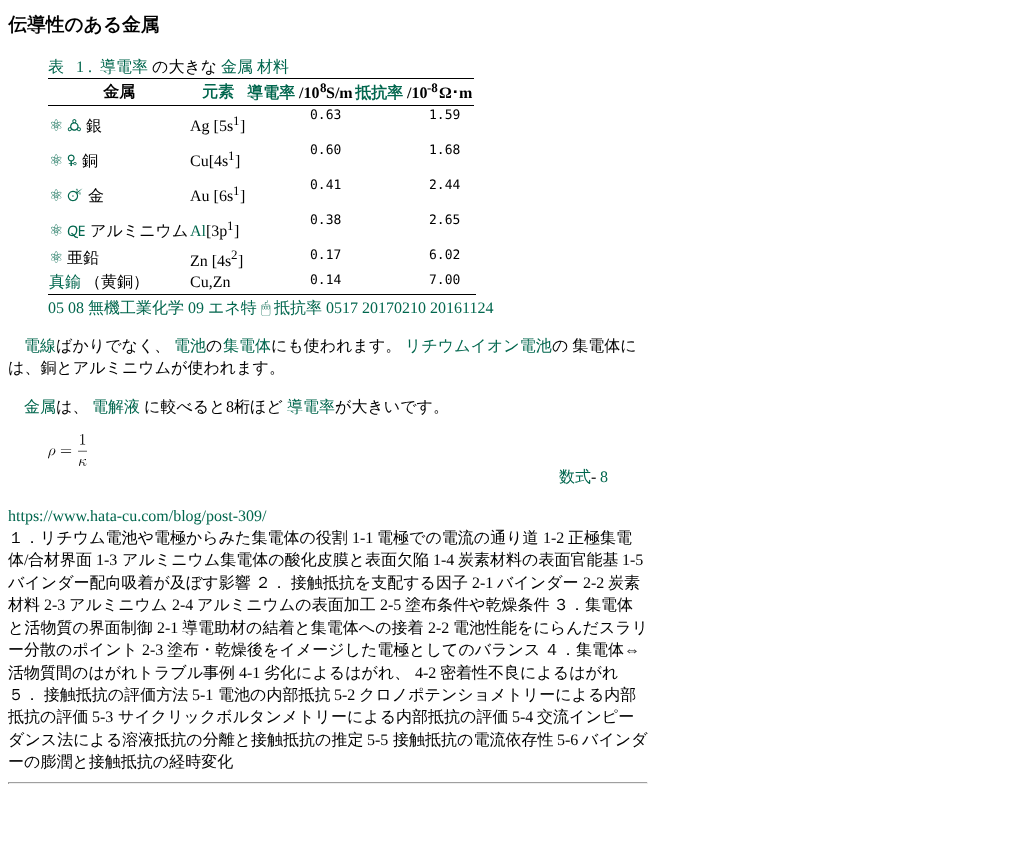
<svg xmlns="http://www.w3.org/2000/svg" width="1031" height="844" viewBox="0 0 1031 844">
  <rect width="100%" height="100%" fill="rgb(255,255,255)"/>
  <text x="8" y="31" font-family="WenQuanYi Zen Hei" font-size="18.75" font-weight="bold" fill="rgb(0,0,0)">伝導性のある金属</text>
  <text x="48" y="72" font-family="WenQuanYi Zen Hei" font-size="16" font-weight="500" fill="rgb(0,102,77)">表</text>
  <text x="76" y="72" font-family="Liberation Serif" font-size="16" fill="rgb(0,102,77)">1 .</text>
  <text x="100" y="72" font-family="WenQuanYi Zen Hei" font-size="16" font-weight="500" fill="rgb(0,102,77)">導電率</text>
  <text x="152" y="72" font-family="WenQuanYi Zen Hei" font-size="16" font-weight="500" fill="rgb(0,0,0)">の大きな</text>
  <g font-family="WenQuanYi Zen Hei" font-size="16" font-weight="500" fill="rgb(0,102,77)">
    <text x="221" y="72">金属</text>
    <text x="257" y="72">材料</text>
  </g>
  <text x="103" y="97" font-family="WenQuanYi Zen Hei" font-size="16" font-weight="bold" fill="rgb(0,0,0)">金属</text>
  <g font-family="WenQuanYi Zen Hei" font-size="16" font-weight="bold" fill="rgb(0,102,77)">
    <text x="202" y="97">元素</text>
    <text x="247" y="98">導電率</text>
  </g>
  <text x="299" y="98" font-family="Liberation Serif" font-size="16" font-weight="bold" fill="rgb(0,0,0)">/10</text>
  <text x="320" y="92" font-family="Liberation Serif" font-size="13" font-weight="bold" fill="rgb(0,0,0)">8</text>
  <text x="326" y="98" font-family="Liberation Serif" font-size="16" font-weight="bold" fill="rgb(0,0,0)">S/m</text>
  <rect x="48" y="78" width="426" height="1" fill="rgb(0,0,0)"/>
  <rect x="48" y="105" width="426" height="1" fill="rgb(0,0,0)"/>
  <text x="355" y="98" font-family="WenQuanYi Zen Hei" font-size="16" font-weight="bold" fill="rgb(0,102,77)">抵抗率</text>
  <text x="407" y="98" font-family="Liberation Serif" font-size="16" font-weight="bold" fill="rgb(0,0,0)">/10</text>
  <text x="427" y="92" font-family="Liberation Serif" font-size="13" font-weight="bold" fill="rgb(0,0,0)">-8</text>
  <text x="439" y="98" font-family="Liberation Serif" font-size="16" font-weight="bold" fill="rgb(0,0,0)">Ω</text>
  <text x="451" y="98" font-family="IPAGothic" font-size="16" font-weight="bold" fill="rgb(0,0,0)">･</text>
  <text x="459" y="98" font-family="Liberation Serif" font-size="16" font-weight="bold" fill="rgb(0,0,0)">m</text>
  <g font-family="DejaVu Sans Mono" font-size="13" fill="rgb(0,0,0)">
    <text x="310" y="119">0.63</text>
    <text x="429" y="119">1.59</text>
  </g>
  <text x="49" y="131" font-family="DejaVu Sans" font-size="16" fill="rgb(0,102,77)">⚛</text>
  <text x="67" y="131" font-family="Noto Sans Symbols" font-size="16" fill="rgb(0,102,77)">🜛</text>
  <text x="86" y="131" font-family="WenQuanYi Zen Hei" font-size="16" font-weight="500" fill="rgb(0,0,0)">銀</text>
  <text x="190" y="131" font-family="Liberation Serif" font-size="16" fill="rgb(0,0,0)">Ag [5s</text>
  <text x="233" y="125" font-family="Liberation Serif" font-size="13" fill="rgb(0,0,0)">1</text>
  <text x="240" y="131" font-family="Liberation Serif" font-size="16" fill="rgb(0,0,0)">]</text>
  <g font-family="DejaVu Sans Mono" font-size="13" fill="rgb(0,0,0)">
    <text x="310" y="154">0.60</text>
    <text x="429" y="154">1.68</text>
  </g>
  <text x="49" y="166" font-family="DejaVu Sans" font-size="16" fill="rgb(0,102,77)">⚛</text>
  <text x="67" y="166" font-family="Noto Sans Symbols" font-size="16" fill="rgb(0,102,77)">🜠</text>
  <text x="82" y="166" font-family="WenQuanYi Zen Hei" font-size="16" font-weight="500" fill="rgb(0,0,0)">銅</text>
  <text x="190" y="166" font-family="Liberation Serif" font-size="16" fill="rgb(0,0,0)">Cu[4s</text>
  <text x="228" y="160" font-family="Liberation Serif" font-size="13" fill="rgb(0,0,0)">1</text>
  <text x="235" y="166" font-family="Liberation Serif" font-size="16" fill="rgb(0,0,0)">]</text>
  <g font-family="DejaVu Sans Mono" font-size="13" fill="rgb(0,0,0)">
    <text x="310" y="189">0.41</text>
    <text x="429" y="189">2.44</text>
  </g>
  <text x="49" y="201" font-family="DejaVu Sans" font-size="16" fill="rgb(0,102,77)">⚛</text>
  <text x="67" y="201" font-family="Noto Sans Symbols" font-size="16" fill="rgb(0,102,77)">🜚</text>
  <text x="88" y="201" font-family="WenQuanYi Zen Hei" font-size="16" font-weight="500" fill="rgb(0,0,0)">金</text>
  <text x="190" y="201" font-family="Liberation Serif" font-size="16" fill="rgb(0,0,0)">Au [6s</text>
  <text x="233" y="195" font-family="Liberation Serif" font-size="13" fill="rgb(0,0,0)">1</text>
  <text x="240" y="201" font-family="Liberation Serif" font-size="16" fill="rgb(0,0,0)">]</text>
  <g font-family="DejaVu Sans Mono" font-size="13" fill="rgb(0,0,0)">
    <text x="310" y="224">0.38</text>
    <text x="429" y="224">2.65</text>
  </g>
  <text x="49" y="236" font-family="DejaVu Sans" font-size="16" fill="rgb(0,102,77)">⚛</text>
  <text x="67" y="236" font-family="Noto Sans Symbols" font-size="16" fill="rgb(0,102,77)">🜀</text>
  <text x="90" y="236" font-family="WenQuanYi Zen Hei" font-size="16" font-weight="500" fill="rgb(0,0,0)">アルミニウム</text>
  <text x="190" y="236" font-family="Liberation Serif" font-size="16" fill="rgb(0,102,77)">Al</text>
  <text x="206" y="236" font-family="Liberation Serif" font-size="16" fill="rgb(0,0,0)">[3p</text>
  <text x="227" y="230" font-family="Liberation Serif" font-size="13" fill="rgb(0,0,0)">1</text>
  <text x="234" y="236" font-family="Liberation Serif" font-size="16" fill="rgb(0,0,0)">]</text>
  <text x="49" y="263" font-family="DejaVu Sans" font-size="16" fill="rgb(0,102,77)">⚛</text>
  <text x="67" y="263" font-family="WenQuanYi Zen Hei" font-size="16" font-weight="500" fill="rgb(0,0,0)">亜鉛</text>
  <text x="190" y="266" font-family="Liberation Serif" font-size="16" fill="rgb(0,0,0)">Zn [4s</text>
  <text x="231" y="259" font-family="Liberation Serif" font-size="13" fill="rgb(0,0,0)">2</text>
  <text x="238" y="266" font-family="Liberation Serif" font-size="16" fill="rgb(0,0,0)">]</text>
  <g font-family="DejaVu Sans Mono" font-size="13" fill="rgb(0,0,0)">
    <text x="310" y="259">0.17</text>
    <text x="429" y="259">6.02</text>
  </g>
  <text x="49" y="287" font-family="WenQuanYi Zen Hei" font-size="16" font-weight="500" fill="rgb(0,102,77)">真鍮</text>
  <text x="85" y="287" font-family="WenQuanYi Zen Hei" font-size="16" font-weight="500" fill="rgb(0,0,0)">（黄銅）</text>
  <text x="190" y="287" font-family="Liberation Serif" font-size="16" fill="rgb(0,0,0)">Cu,Zn</text>
  <g font-family="DejaVu Sans Mono" font-size="13" fill="rgb(0,0,0)">
    <text x="310" y="284">0.14</text>
    <text x="429" y="284">7.00</text>
  </g>
  <rect x="48" y="294" width="428" height="1" fill="rgb(0,0,0)"/>
  <text x="48" y="313" font-family="Liberation Serif" font-size="16" fill="rgb(0,102,77)">05 08</text>
  <text x="88" y="313" font-family="WenQuanYi Zen Hei" font-size="16" font-weight="500" fill="rgb(0,102,77)">無機工業化学</text>
  <text x="188" y="313" font-family="Liberation Serif" font-size="16" fill="rgb(0,102,77)">09</text>
  <text x="208" y="313" font-family="WenQuanYi Zen Hei" font-size="16" font-weight="500" fill="rgb(0,102,77)">エネ特</text>
  <text x="261" y="313" font-family="FreeSerif" font-size="16" fill="rgb(0,102,77)">🖱</text>
  <text x="274" y="313" font-family="WenQuanYi Zen Hei" font-size="16" font-weight="500" fill="rgb(0,102,77)">抵抗率</text>
  <text x="326" y="313" font-family="Liberation Serif" font-size="16" fill="rgb(0,102,77)">0517 20170210 20161124</text>
  <text x="24" y="351" font-family="WenQuanYi Zen Hei" font-size="16" font-weight="500" fill="rgb(0,102,77)">電線</text>
  <text x="56" y="351" font-family="WenQuanYi Zen Hei" font-size="16" font-weight="500" fill="rgb(0,0,0)">ばかりでなく、</text>
  <text x="174" y="351" font-family="WenQuanYi Zen Hei" font-size="16" font-weight="500" fill="rgb(0,102,77)">電池</text>
  <text x="206" y="351" font-family="WenQuanYi Zen Hei" font-size="16" font-weight="500" fill="rgb(0,0,0)">の</text>
  <text x="223" y="351" font-family="WenQuanYi Zen Hei" font-size="16" font-weight="500" fill="rgb(0,102,77)">集電体</text>
  <text x="271" y="351" font-family="WenQuanYi Zen Hei" font-size="16" font-weight="500" fill="rgb(0,0,0)">にも使われます。</text>
  <text x="405" y="351" font-family="WenQuanYi Zen Hei" font-size="16" font-weight="500" fill="rgb(0,102,77)">リチウムイオン電池</text>
  <g font-family="WenQuanYi Zen Hei" font-size="16" font-weight="500" fill="rgb(0,0,0)">
    <text x="552" y="351" word-spacing="-1">の 集電体に</text>
    <text x="8" y="373">は、銅とアルミニウムが使われます。</text>
  </g>
  <text x="24" y="412" font-family="WenQuanYi Zen Hei" font-size="16" font-weight="500" fill="rgb(0,102,77)">金属</text>
  <text x="56" y="412" font-family="WenQuanYi Zen Hei" font-size="16" font-weight="500" fill="rgb(0,0,0)">は、</text>
  <text x="92" y="412" font-family="WenQuanYi Zen Hei" font-size="16" font-weight="500" fill="rgb(0,102,77)">電解液</text>
  <text x="144" y="412" font-family="WenQuanYi Zen Hei" font-size="16" font-weight="500" fill="rgb(0,0,0)">に較べると</text>
  <text x="226" y="412" font-family="Liberation Serif" font-size="16" fill="rgb(0,0,0)">8</text>
  <text x="234" y="412" font-family="WenQuanYi Zen Hei" font-size="16" font-weight="500" fill="rgb(0,0,0)">桁ほど</text>
  <text x="287" y="412" font-family="WenQuanYi Zen Hei" font-size="16" font-weight="500" fill="rgb(0,102,77)">導電率</text>
  <text x="335" y="412" font-family="WenQuanYi Zen Hei" font-size="16" font-weight="500" fill="rgb(0,0,0)">が大きいです。</text>
  <image x="48" y="434" width="39" height="32" href="pic1.png"/>
  <text x="559" y="482" font-family="WenQuanYi Zen Hei" font-size="16" font-weight="500" fill="rgb(0,102,77)">数式</text>
  <text x="591" y="482" font-family="Liberation Serif" font-size="16" fill="rgb(0,0,0)">-</text>
  <g font-family="Liberation Serif" font-size="16" fill="rgb(0,102,77)">
    <text x="600" y="482">8</text>
    <text x="8" y="521">https://www.hata-cu.com/blog/post-309/</text>
  </g>
  <text x="8" y="543" font-family="WenQuanYi Zen Hei" font-size="16" font-weight="500" fill="rgb(0,0,0)">１．リチウム電池や電極からみた集電体の役割</text>
  <text x="352" y="543" font-family="Liberation Serif" font-size="16" fill="rgb(0,0,0)">1-1</text>
  <text x="377" y="543" font-family="WenQuanYi Zen Hei" font-size="16" font-weight="500" fill="rgb(0,0,0)">電極での電流の通り道</text>
  <text x="543" y="543" font-family="Liberation Serif" font-size="16" fill="rgb(0,0,0)">1-2</text>
  <g font-family="WenQuanYi Zen Hei" font-size="16" font-weight="500" fill="rgb(0,0,0)">
    <text x="568" y="543">正極集電</text>
    <text x="8" y="565">体</text>
  </g>
  <text x="24" y="565" font-family="Liberation Serif" font-size="16" fill="rgb(0,0,0)">/</text>
  <text x="28" y="565" font-family="WenQuanYi Zen Hei" font-size="16" font-weight="500" fill="rgb(0,0,0)">合材界面</text>
  <text x="96" y="565" font-family="Liberation Serif" font-size="16" fill="rgb(0,0,0)">1-3</text>
  <text x="122" y="565" font-family="WenQuanYi Zen Hei" font-size="16" font-weight="500" fill="rgb(0,0,0)">アルミニウム集電体の酸化皮膜と表面欠陥</text>
  <text x="433" y="565" font-family="Liberation Serif" font-size="16" fill="rgb(0,0,0)">1-4</text>
  <text x="458" y="565" font-family="WenQuanYi Zen Hei" font-size="16" font-weight="500" fill="rgb(0,0,0)">炭素材料の表面官能基</text>
  <text x="622" y="565" font-family="Liberation Serif" font-size="16" fill="rgb(0,0,0)">1-5</text>
  <g font-family="WenQuanYi Zen Hei" font-size="16" font-weight="500" fill="rgb(0,0,0)">
    <text x="8" y="588">バインダー配向吸着が及ぼす影響</text>
    <text x="255" y="588" word-spacing="-1">２． 接触抵抗を支配する因子</text>
  </g>
  <text x="472" y="588" font-family="Liberation Serif" font-size="16" fill="rgb(0,0,0)">2-1</text>
  <text x="497" y="588" font-family="WenQuanYi Zen Hei" font-size="16" font-weight="500" fill="rgb(0,0,0)">バインダー</text>
  <text x="583" y="588" font-family="Liberation Serif" font-size="16" fill="rgb(0,0,0)">2-2</text>
  <g font-family="WenQuanYi Zen Hei" font-size="16" font-weight="500" fill="rgb(0,0,0)">
    <text x="608" y="588">炭素</text>
    <text x="8" y="610">材料</text>
  </g>
  <text x="44" y="610" font-family="Liberation Serif" font-size="16" fill="rgb(0,0,0)">2-3</text>
  <text x="69" y="610" font-family="WenQuanYi Zen Hei" font-size="16" font-weight="500" fill="rgb(0,0,0)">アルミニウム</text>
  <text x="172" y="610" font-family="Liberation Serif" font-size="16" fill="rgb(0,0,0)">2-4</text>
  <text x="197" y="610" font-family="WenQuanYi Zen Hei" font-size="16" font-weight="500" fill="rgb(0,0,0)">アルミニウムの表面加工</text>
  <text x="380" y="610" font-family="Liberation Serif" font-size="16" fill="rgb(0,0,0)">2-5</text>
  <g font-family="WenQuanYi Zen Hei" font-size="16" font-weight="500" fill="rgb(0,0,0)">
    <text x="405" y="610">塗布条件や乾燥条件</text>
    <text x="553" y="610">３．集電体</text>
    <text x="8" y="633">と活物質の界面制御</text>
  </g>
  <text x="157" y="633" font-family="Liberation Serif" font-size="16" fill="rgb(0,0,0)">2-1</text>
  <text x="182" y="633" font-family="WenQuanYi Zen Hei" font-size="16" font-weight="500" fill="rgb(0,0,0)">導電助材の結着と集電体への接着</text>
  <text x="428" y="633" font-family="Liberation Serif" font-size="16" fill="rgb(0,0,0)">2-2</text>
  <g font-family="WenQuanYi Zen Hei" font-size="16" font-weight="500" fill="rgb(0,0,0)">
    <text x="453" y="633">電池性能をにらんだスラリ</text>
    <text x="8" y="655">ー分散のポイント</text>
  </g>
  <text x="142" y="655" font-family="Liberation Serif" font-size="16" fill="rgb(0,0,0)">2-3</text>
  <g font-family="WenQuanYi Zen Hei" font-size="16" font-weight="500" fill="rgb(0,0,0)">
    <text x="167" y="655">塗布・乾燥後をイメージした電極としてのバランス</text>
    <text x="544" y="655">４．集電体</text>
  </g>
  <text x="624" y="655" font-family="Liberation Serif" font-size="16" fill="rgb(0,0,0)">⇔</text>
  <text x="8" y="678" font-family="WenQuanYi Zen Hei" font-size="16" font-weight="500" fill="rgb(0,0,0)">活物質間のはがれトラブル事例</text>
  <text x="239" y="678" font-family="Liberation Serif" font-size="16" fill="rgb(0,0,0)">4-1</text>
  <text x="264" y="678" font-family="WenQuanYi Zen Hei" font-size="16" font-weight="500" fill="rgb(0,0,0)">劣化によるはがれ、</text>
  <text x="415" y="678" font-family="Liberation Serif" font-size="16" fill="rgb(0,0,0)">4-2</text>
  <g font-family="WenQuanYi Zen Hei" font-size="16" font-weight="500" fill="rgb(0,0,0)">
    <text x="440" y="678">密着性不良によるはがれ</text>
    <text x="8" y="700" word-spacing="-1">５． 接触抵抗の評価方法</text>
  </g>
  <text x="192" y="700" font-family="Liberation Serif" font-size="16" fill="rgb(0,0,0)">5-1</text>
  <text x="218" y="700" font-family="WenQuanYi Zen Hei" font-size="16" font-weight="500" fill="rgb(0,0,0)">電池の内部抵抗</text>
  <text x="334" y="700" font-family="Liberation Serif" font-size="16" fill="rgb(0,0,0)">5-2</text>
  <g font-family="WenQuanYi Zen Hei" font-size="16" font-weight="500" fill="rgb(0,0,0)">
    <text x="359" y="700">クロノポテンショメトリーによる内部</text>
    <text x="8" y="722">抵抗の評価</text>
  </g>
  <text x="92" y="722" font-family="Liberation Serif" font-size="16" fill="rgb(0,0,0)">5-3</text>
  <text x="118" y="722" font-family="WenQuanYi Zen Hei" font-size="16" font-weight="500" fill="rgb(0,0,0)">サイクリックボルタンメトリーによる内部抵抗の評価</text>
  <text x="512" y="722" font-family="Liberation Serif" font-size="16" fill="rgb(0,0,0)">5-4</text>
  <g font-family="WenQuanYi Zen Hei" font-size="16" font-weight="500" fill="rgb(0,0,0)">
    <text x="537" y="722">交流インピー</text>
    <text x="8" y="745">ダンス法による溶液抵抗の分離と接触抵抗の推定</text>
  </g>
  <text x="367" y="745" font-family="Liberation Serif" font-size="16" fill="rgb(0,0,0)">5-5</text>
  <text x="393" y="745" font-family="WenQuanYi Zen Hei" font-size="16" font-weight="500" fill="rgb(0,0,0)">接触抵抗の電流依存性</text>
  <text x="557" y="745" font-family="Liberation Serif" font-size="16" fill="rgb(0,0,0)">5-6</text>
  <g font-family="WenQuanYi Zen Hei" font-size="16" font-weight="500" fill="rgb(0,0,0)">
    <text x="582" y="745">バインダ</text>
    <text x="8" y="767">ーの膨潤と接触抵抗の経時変化</text>
  </g>
  <rect x="8" y="782" width="640" height="1" fill="rgb(159,159,159)"/>
  <rect x="647" y="782" width="1" height="2" fill="rgb(238,238,238)"/>
  <rect x="8" y="783" width="640" height="1" fill="rgb(238,238,238)"/>
  <rect x="8" y="782" width="1" height="2" fill="rgb(159,159,159)"/>
</svg>
